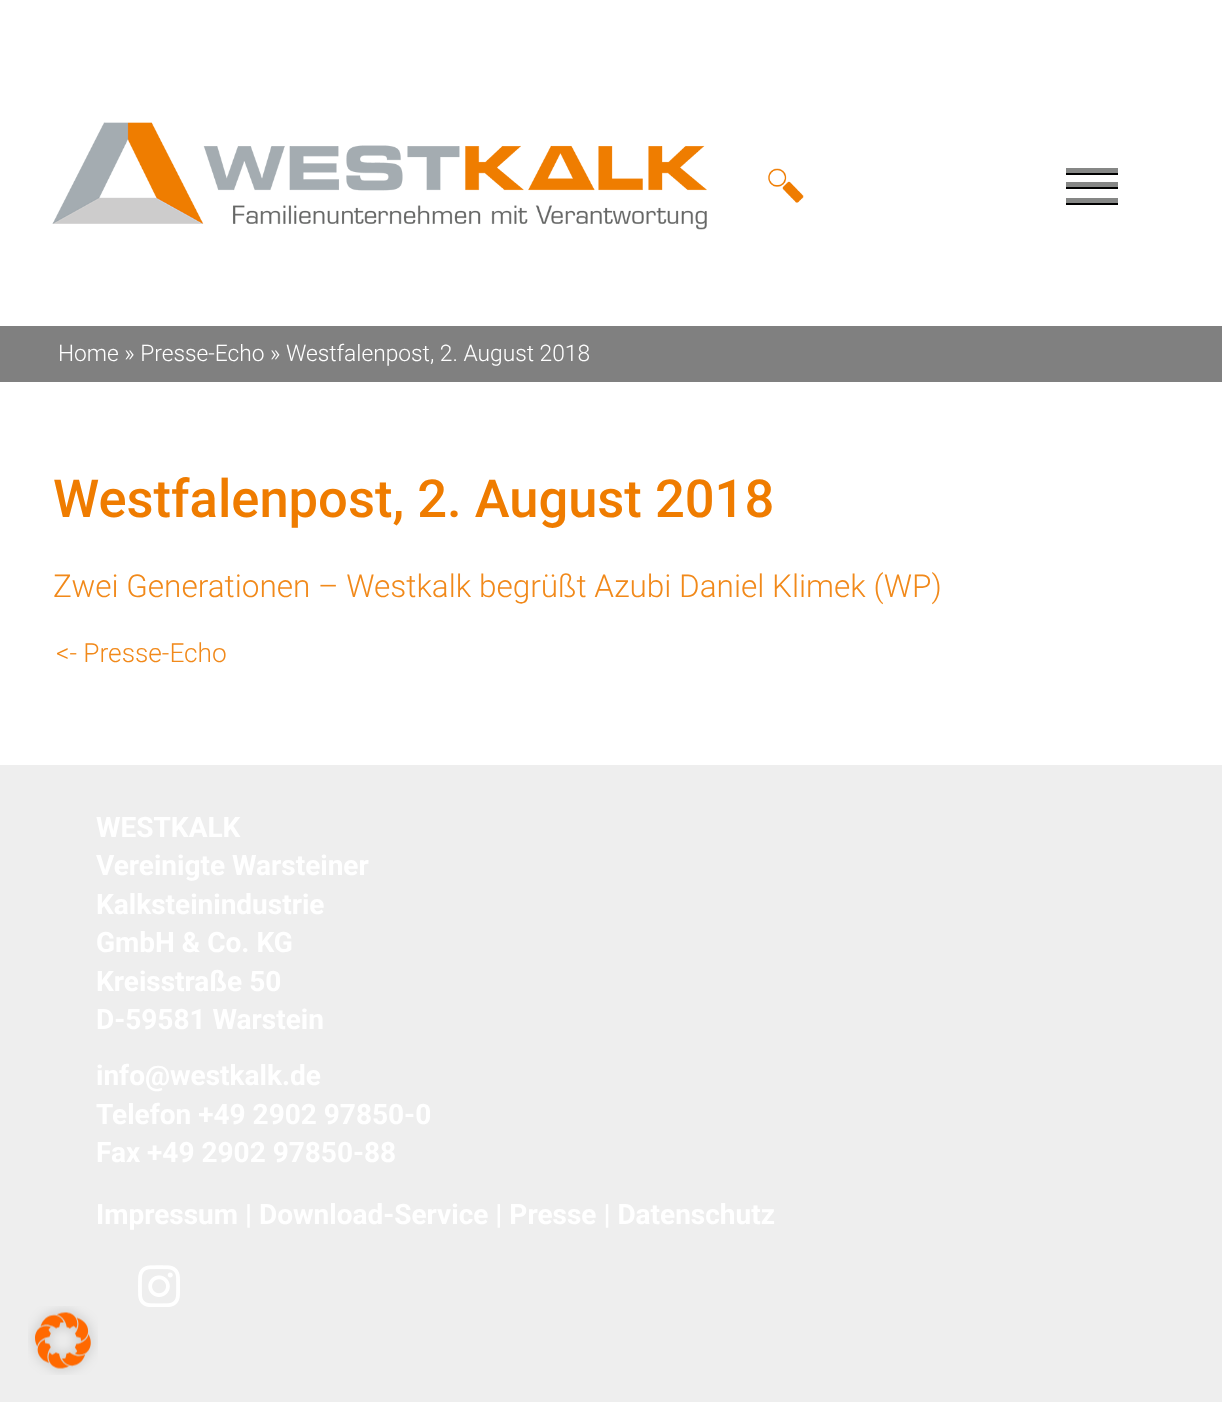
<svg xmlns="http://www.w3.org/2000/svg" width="1222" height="1402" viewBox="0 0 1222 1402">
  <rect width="100%" height="100%" fill="rgb(238,238,238)"/>
  <rect x="0" y="0" width="1222" height="326" fill="rgb(255,255,255)"/>
  <image x="52" y="122" width="655" height="108" href="pic1.png"/>
  <image x="768" y="168" width="36" height="35" href="pic2.png"/>
  <rect x="1066" y="168" width="52" height="5" fill="rgb(134,135,134)"/>
  <rect x="1066" y="173" width="52" height="2" fill="rgb(0,0,0)"/>
  <rect x="1066" y="182" width="52" height="5" fill="rgb(134,135,134)"/>
  <rect x="1066" y="187" width="52" height="2" fill="rgb(0,0,0)"/>
  <rect x="1066" y="198" width="52" height="5" fill="rgb(134,135,134)"/>
  <rect x="1066" y="203" width="52" height="2" fill="rgb(0,0,0)"/>
  <rect x="0" y="326" width="1222" height="56" fill="rgb(128,128,128)"/>
  <text x="58" y="361" font-family="Roboto" font-size="22.75" font-weight="300" fill="rgb(255,255,255)">Home » Presse-Echo » Westfalenpost, 2. August 2018</text>
  <rect x="0" y="382" width="1222" height="383" fill="rgb(255,255,255)"/>
  <text x="53" y="517" font-family="Roboto" font-size="52.5" font-weight="500" fill="rgb(239,124,0)">Westfalenpost, 2. August 2018</text>
  <text x="53" y="597" font-family="Roboto" font-size="31.5" font-weight="300" fill="rgb(241,137,26)">Zwei Generationen – Westkalk begrüßt Azubi Daniel Klimek (WP)</text>
  <text x="56" y="662" font-family="Roboto" font-size="26.25" font-weight="300" fill="rgb(241,137,26)">&lt;- Presse-Echo</text>
  <g font-family="Roboto" font-size="28" font-weight="bold" fill="rgb(255,255,255)">
    <text>
      <tspan x="96" y="837">WESTKALK</tspan>
      <tspan x="96" y="875">Vereinigte Warsteiner</tspan>
      <tspan x="96" y="914">Kalksteinindustrie</tspan>
      <tspan x="96" y="952">GmbH &amp; Co. KG</tspan>
      <tspan x="96" y="991">Kreisstraße 50</tspan>
      <tspan x="96" y="1029">D-59581 Warstein</tspan>
    </text>
    <text>
      <tspan x="96" y="1085">info@westkalk.de</tspan>
      <tspan x="96" y="1124">Telefon +49 2902 97850-0</tspan>
      <tspan x="96" y="1162">Fax +49 2902 97850-88</tspan>
    </text>
    <text x="96" y="1224">Impressum | Download-Service | Presse | Datenschutz</text>
  </g>
  <image x="138" y="1265" width="42" height="42" href="pic3.png"/>
  <image x="28" y="1306" width="70" height="69" href="pic4.png"/>
</svg>
